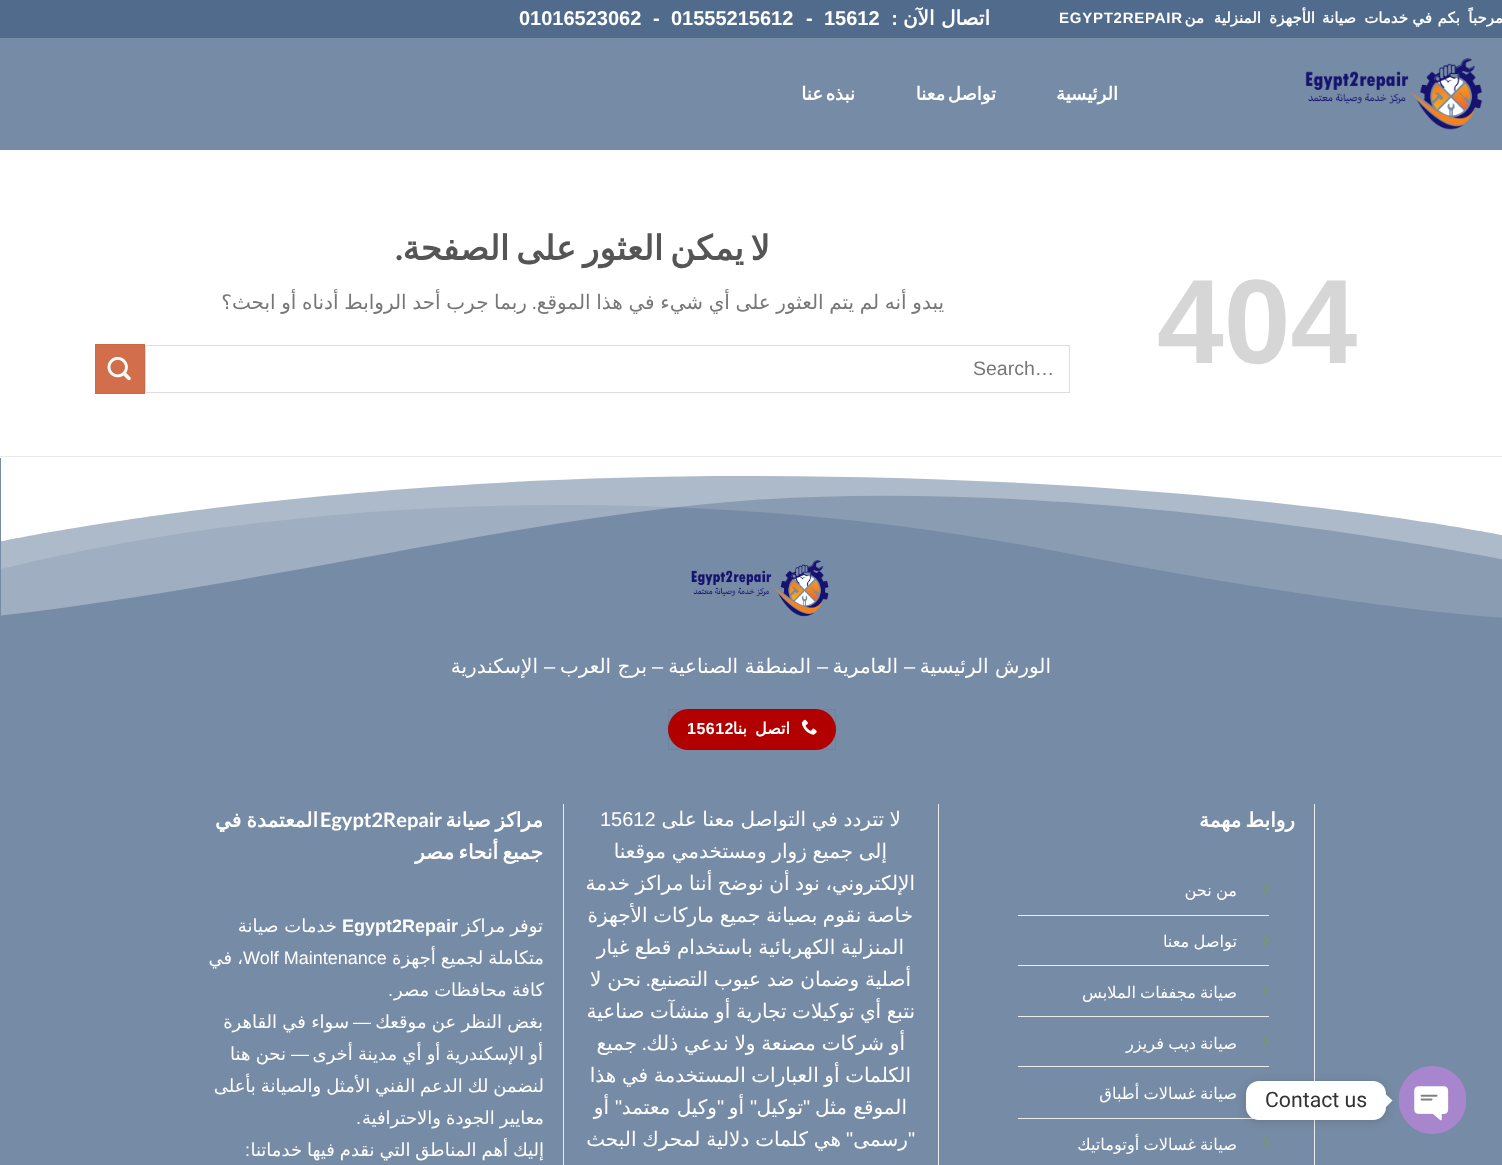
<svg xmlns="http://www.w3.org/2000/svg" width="1502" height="1165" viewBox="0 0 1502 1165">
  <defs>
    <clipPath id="clip1"><rect x="1" y="456" width="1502" height="188"/></clipPath>
  </defs>
  <rect width="100%" height="100%" fill="rgb(255,255,255)"/>
  <rect x="0" y="0" width="1502" height="38" fill="rgb(81,107,141)"/>
  <g font-family="DejaVu Sans" font-size="15" font-weight="bold" letter-spacing="0.75" direction="rtl" fill="rgb(255,255,255)">
    <text x="1503" y="23">مرحباً</text>
    <text x="1460" y="23">بكم</text>
    <text x="1432" y="23">في</text>
    <text x="1408" y="23">خدمات</text>
    <text x="1356" y="23">صيانة</text>
    <text x="1315" y="23">الأجهزة</text>
    <text x="1261" y="23">المنزلية</text>
    <text x="1204" y="23">من</text>
  </g>
  <text x="1059" y="23" font-family="Liberation Sans" font-size="15" font-weight="bold" letter-spacing="0.75" fill="rgb(255,255,255)">EGYPT2REPAIR</text>
  <text x="990" y="25" font-family="DejaVu Sans" font-size="20" font-weight="bold" direction="rtl" fill="rgb(255,255,255)">اتصال الآن</text>
  <text x="898" y="25" font-family="Liberation Sans" font-size="20" font-weight="bold" direction="rtl" fill="rgb(255,255,255)">:</text>
  <g font-family="Liberation Sans" font-size="20" font-weight="bold" fill="rgb(255,255,255)">
    <text x="824" y="25">15612</text>
    <text x="806" y="25">-</text>
    <text x="671" y="25">01555215612</text>
    <text x="653" y="25">-</text>
    <text x="519" y="25">01016523062</text>
  </g>
  <rect x="0" y="38" width="1502" height="112" fill="rgb(118,139,165)"/>
  <image x="1305" y="58" width="178" height="72" href="pic1.png"/>
  <g font-family="DejaVu Sans" font-size="18" font-weight="bold" letter-spacing="0.4" direction="rtl" fill="rgb(255,255,255)">
    <text x="1118" y="100">الرئيسية</text>
    <text x="996" y="100" word-spacing="-3">تواصل معنا</text>
    <text x="855" y="100" word-spacing="-3">نبذه عنا</text>
  </g>
  <text x="1157" y="363" font-family="Liberation Sans" font-size="120" font-weight="bold" fill="rgb(214,214,214)">404</text>
  <text x="770" y="260" word-spacing="-4" font-family="DejaVu Sans" font-size="34" font-weight="bold" direction="rtl" fill="rgb(85,85,85)">لا يمكن العثور على الصفحة</text>
  <text x="403" y="260" font-family="Lato" font-size="34" font-weight="bold" direction="rtl" fill="rgb(85,85,85)">.</text>
  <text x="944" y="309" word-spacing="-0.75" font-family="DejaVu Sans" font-size="20" direction="rtl" fill="rgb(119,119,119)">يبدو أنه لم يتم العثور على أي شيء في هذا الموقع</text>
  <text x="537" y="309" font-family="Liberation Sans" font-size="20" direction="rtl" fill="rgb(119,119,119)">.</text>
  <text x="527" y="309" word-spacing="-0.75" font-family="DejaVu Sans" font-size="20" direction="rtl" fill="rgb(119,119,119)">ربما جرب أحد الروابط أدناه أو ابحث؟</text>
  <rect x="145.5" y="345.5" width="924" height="47" fill="none" stroke="rgb(221,221,221)"/>
  <text x="973" y="375" font-family="Liberation Sans" font-size="19.5" fill="rgb(119,119,119)">Search…</text>
  <rect x="95.5" y="344.5" width="49" height="49" fill="rgb(210,110,75)" stroke="rgb(200,105,71)"/>
  <image x="107" y="356" width="24" height="25" href="pic2.png"/>
  <rect x="0" y="456" width="1502" height="1" fill="rgb(230,230,230)"/>
  <rect x="0" y="458" width="1502" height="707" fill="rgb(118,139,165)"/>
  <g clip-path="url(#clip1)">
    <path d="M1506 618C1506 618 1373 612 1055 551C663 476 281 500-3 570L-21 517L-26 450H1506Z" fill="rgba(255,255,255,0.15)"/>
    <path d="M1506 560C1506 560 1098 476 754 500C517 517 257 588-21 618V457H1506Z" fill="rgba(255,255,255,0.3)"/>
    <path d="M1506 536C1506 536 1223 476 742 476C305 476-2 542-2 542V457H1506Z" fill="rgb(255,255,255)"/>
  </g>
  <image x="691" y="560" width="138" height="57" href="pic3.png"/>
  <text x="1051" y="673" font-family="DejaVu Sans" font-size="20" direction="rtl" fill="rgb(255,255,255)">الورش الرئيسية</text>
  <text x="915" y="673" font-family="Liberation Sans" font-size="20" direction="rtl" fill="rgb(255,255,255)">–</text>
  <text x="898" y="673" font-family="DejaVu Sans" font-size="20" direction="rtl" fill="rgb(255,255,255)">العامرية</text>
  <text x="828" y="673" font-family="Liberation Sans" font-size="20" direction="rtl" fill="rgb(255,255,255)">–</text>
  <text x="811" y="673" font-family="DejaVu Sans" font-size="20" direction="rtl" fill="rgb(255,255,255)">المنطقة الصناعية</text>
  <text x="663" y="673" font-family="Liberation Sans" font-size="20" direction="rtl" fill="rgb(255,255,255)">–</text>
  <text x="647" y="673" font-family="DejaVu Sans" font-size="20" direction="rtl" fill="rgb(255,255,255)">برج العرب</text>
  <text x="555" y="673" font-family="Liberation Sans" font-size="20" direction="rtl" fill="rgb(255,255,255)">–</text>
  <text x="538" y="673" font-family="DejaVu Sans" font-size="20" direction="rtl" fill="rgb(255,255,255)">الإسكندرية</text>
  <rect x="668" y="709" width="168" height="41" rx="20.5" fill="rgb(178,0,0)"/>
  <rect x="668.5" y="709.5" width="167" height="40" fill="none" stroke="rgba(0,0,0,0.05)"/>
  <image x="801" y="719" width="16" height="16" href="pic4.png"/>
  <text x="790" y="734" font-family="DejaVu Sans" font-size="16" font-weight="bold" letter-spacing="0.5" direction="rtl" fill="rgb(255,255,255)">اتصل</text>
  <text x="687" y="734" font-family="Liberation Sans" font-size="16" font-weight="bold" letter-spacing="0.5" fill="rgb(255,255,255)">15612</text>
  <text x="747" y="734" font-family="DejaVu Sans" font-size="16" font-weight="bold" letter-spacing="0.5" direction="rtl" fill="rgb(255,255,255)">بنا</text>
  <rect x="1314" y="804" width="1" height="361" fill="rgb(236,236,236)"/>
  <text x="1295" y="827" word-spacing="-2" font-family="DejaVu Sans" font-size="20" font-weight="bold" direction="rtl" fill="rgb(255,255,255)">روابط مهمة</text>
  <rect x="1018" y="915" width="251" height="1" fill="rgb(236,236,236)"/>
  <image x="1262" y="883" width="7" height="12" href="pic5.png"/>
  <text x="1237" y="896" word-spacing="-1" font-family="DejaVu Sans" font-size="16.25" direction="rtl" fill="rgb(255,255,255)">من نحن</text>
  <rect x="1018" y="965" width="251" height="1" fill="rgb(236,236,236)"/>
  <image x="1262" y="934" width="7" height="12" href="pic6.png"/>
  <text x="1237" y="947" word-spacing="-1" font-family="DejaVu Sans" font-size="16.25" direction="rtl" fill="rgb(255,255,255)">تواصل معنا</text>
  <rect x="1018" y="1016" width="251" height="1" fill="rgb(236,236,236)"/>
  <image x="1262" y="984" width="7" height="12" href="pic6.png"/>
  <text x="1237" y="998" word-spacing="-1" font-family="DejaVu Sans" font-size="16.25" direction="rtl" fill="rgb(255,255,255)">صيانة مجففات الملابس</text>
  <rect x="1018" y="1066" width="251" height="1" fill="rgb(236,236,236)"/>
  <image x="1262" y="1035" width="7" height="12" href="pic7.png"/>
  <text x="1237" y="1049" word-spacing="-1" font-family="DejaVu Sans" font-size="16.25" direction="rtl" fill="rgb(255,255,255)">صيانة ديب فريزر</text>
  <rect x="1018" y="1118" width="236" height="1" fill="rgb(236,236,236)"/>
  <text x="1237" y="1099" word-spacing="-1" font-family="DejaVu Sans" font-size="16.25" direction="rtl" fill="rgb(255,255,255)">صيانة غسالات أطباق</text>
  <image x="1262" y="1137" width="7" height="11" href="pic8.png"/>
  <text x="1237" y="1150" word-spacing="-1" font-family="DejaVu Sans" font-size="16.25" direction="rtl" fill="rgb(255,255,255)">صيانة غسالات أوتوماتيك</text>
  <rect x="938" y="804" width="1" height="361" fill="rgb(236,236,236)"/>
  <text x="901" y="826" word-spacing="-0.75" font-family="DejaVu Sans" font-size="20" direction="rtl" fill="rgb(255,255,255)">لا تتردد في التواصل معنا على</text>
  <text x="600" y="826" font-family="Liberation Sans" font-size="20" fill="rgb(255,255,255)">15612</text>
  <g font-family="DejaVu Sans" font-size="20" direction="rtl" fill="rgb(255,255,255)">
    <text x="887" y="858" word-spacing="-0.75">إلى جميع زوار ومستخدمي موقعنا</text>
    <text x="915" y="890" word-spacing="-0.75">الإلكتروني، نود أن نوضح أننا مراكز خدمة</text>
    <text x="913" y="922" word-spacing="-0.75">خاصة نقوم بصيانة جميع ماركات الأجهزة</text>
    <text x="904" y="954" word-spacing="-0.75">المنزلية الكهربائية باستخدام قطع غيار</text>
    <text x="911" y="986" word-spacing="-0.5">أصلية وضمان ضد عيوب التصنيع</text>
  </g>
  <text x="651" y="986" font-family="Liberation Sans" font-size="20" direction="rtl" fill="rgb(255,255,255)">.</text>
  <g font-family="DejaVu Sans" font-size="20" direction="rtl" fill="rgb(255,255,255)">
    <text x="641" y="986" word-spacing="-0.5">نحن لا</text>
    <text x="915" y="1018" word-spacing="-0.75">نتبع أي توكيلات تجارية أو منشآت صناعية</text>
    <text x="905" y="1050" word-spacing="-0.5">أو شركات مصنعة ولا ندعي ذلك</text>
  </g>
  <text x="647" y="1050" font-family="Liberation Sans" font-size="20" direction="rtl" fill="rgb(255,255,255)">.</text>
  <g font-family="DejaVu Sans" font-size="20" direction="rtl" fill="rgb(255,255,255)">
    <text x="637" y="1050">جميع</text>
    <text x="911" y="1082" word-spacing="-0.75">الكلمات أو العبارات المستخدمة في هذا</text>
    <text x="907" y="1114">الموقع مثل</text>
  </g>
  <text x="810" y="1114" font-family="Liberation Sans" font-size="20" direction="rtl" fill="rgb(255,255,255)">"</text>
  <text x="803" y="1114" font-family="DejaVu Sans" font-size="20" direction="rtl" fill="rgb(255,255,255)">توكيل</text>
  <text x="757" y="1114" font-family="Liberation Sans" font-size="20" direction="rtl" fill="rgb(255,255,255)">"</text>
  <text x="744" y="1114" font-family="DejaVu Sans" font-size="20" direction="rtl" fill="rgb(255,255,255)">أو</text>
  <text x="724" y="1114" font-family="Liberation Sans" font-size="20" direction="rtl" fill="rgb(255,255,255)">"</text>
  <text x="717" y="1114" font-family="DejaVu Sans" font-size="20" direction="rtl" fill="rgb(255,255,255)">وكيل معتمد</text>
  <text x="622" y="1114" font-family="Liberation Sans" font-size="20" direction="rtl" fill="rgb(255,255,255)">"</text>
  <text x="609" y="1114" font-family="DejaVu Sans" font-size="20" direction="rtl" fill="rgb(255,255,255)">أو</text>
  <g font-family="Liberation Sans" font-size="20" direction="rtl" fill="rgb(255,255,255)">
    <text x="915" y="1146">"</text>
    <text x="853" y="1146">"</text>
  </g>
  <g font-family="DejaVu Sans" font-size="20" direction="rtl" fill="rgb(255,255,255)">
    <text x="841" y="1146" word-spacing="-0.5">هي كلمات دلالية لمحرك البحث</text>
    <text x="908" y="1146">رسمى</text>
  </g>
  <rect x="563" y="804" width="1" height="361" fill="rgb(236,236,236)"/>
  <text x="543" y="827" word-spacing="-2" font-family="DejaVu Sans" font-size="20" font-weight="bold" direction="rtl" fill="rgb(255,255,255)">مراكز صيانة</text>
  <text x="320" y="827" font-family="Lato" font-size="20" font-weight="bold" fill="rgb(255,255,255)">Egypt2Repair</text>
  <g font-family="DejaVu Sans" font-size="20" font-weight="bold" direction="rtl" fill="rgb(255,255,255)">
    <text x="318" y="827" word-spacing="-1">المعتمدة في</text>
    <text x="543" y="859" word-spacing="-2">جميع أنحاء مصر</text>
  </g>
  <text x="543" y="932" word-spacing="-0.75" font-family="DejaVu Sans" font-size="18" direction="rtl" fill="rgb(255,255,255)">توفر مراكز</text>
  <text x="342" y="932" font-family="Liberation Sans" font-size="18" font-weight="bold" fill="rgb(255,255,255)">Egypt2Repair</text>
  <g font-family="DejaVu Sans" font-size="18" direction="rtl" fill="rgb(255,255,255)">
    <text x="337" y="932">خدمات صيانة</text>
    <text x="544" y="964" word-spacing="-0.75">متكاملة لجميع أجهزة</text>
  </g>
  <text x="243" y="964" font-family="Liberation Sans" font-size="18" fill="rgb(255,255,255)">Wolf Maintenance</text>
  <g font-family="DejaVu Sans" font-size="18" direction="rtl" fill="rgb(255,255,255)">
    <text x="243" y="964" word-spacing="-0.75">، في</text>
    <text x="544" y="996" word-spacing="-0.75">كافة محافظات مصر</text>
  </g>
  <text x="393" y="996" font-family="Liberation Sans" font-size="18" direction="rtl" fill="rgb(255,255,255)">.</text>
  <text x="543" y="1028" word-spacing="-0.5" font-family="DejaVu Sans" font-size="18" direction="rtl" fill="rgb(255,255,255)">بغض النظر عن موقعك</text>
  <text x="371" y="1028" font-family="Liberation Sans" font-size="18" direction="rtl" fill="rgb(255,255,255)">—</text>
  <g font-family="DejaVu Sans" font-size="18" direction="rtl" fill="rgb(255,255,255)">
    <text x="349" y="1028" word-spacing="-0.5">سواء في القاهرة</text>
    <text x="543" y="1060" word-spacing="-0.5">أو الإسكندرية أو أي مدينة أخرى</text>
  </g>
  <text x="309" y="1060" font-family="Liberation Sans" font-size="18" direction="rtl" fill="rgb(255,255,255)">—</text>
  <g font-family="DejaVu Sans" font-size="18" direction="rtl" fill="rgb(255,255,255)">
    <text x="286" y="1060" word-spacing="-0.5">نحن هنا</text>
    <text>
      <tspan x="544" y="1092" word-spacing="-0.75">لنضمن لك الدعم الفني الأمثل والصيانة بأعلى</tspan>
      <tspan x="544" y="1124" word-spacing="-0.75">معايير الجودة والاحترافية</tspan>
    </text>
  </g>
  <text x="361" y="1124" font-family="Liberation Sans" font-size="18" direction="rtl" fill="rgb(255,255,255)">.</text>
  <text x="544" y="1156" word-spacing="-0.75" font-family="DejaVu Sans" font-size="18" direction="rtl" fill="rgb(255,255,255)">إليك أهم المناطق التي نقدم فيها خدماتنا</text>
  <text x="250" y="1156" font-family="Liberation Sans" font-size="18" direction="rtl" fill="rgb(255,255,255)">:</text>
  <rect x="1246" y="1083" width="140" height="38" rx="13" fill="rgba(0,0,0,0.15)" filter="blur(5px)"/>
  <image x="1399" y="1066" width="67" height="68" href="pic9.png"/>
  <rect x="1246" y="1081" width="140" height="39" rx="13" fill="rgb(255,255,255)"/>
  <path d="M1386 1107V1094.5L1392.5 1100.5Z" fill="rgb(255,255,255)"/>
  <text x="1265" y="1107" font-family="Roboto" font-size="21.25" fill="rgb(51,51,51)">Contact us</text>
</svg>
